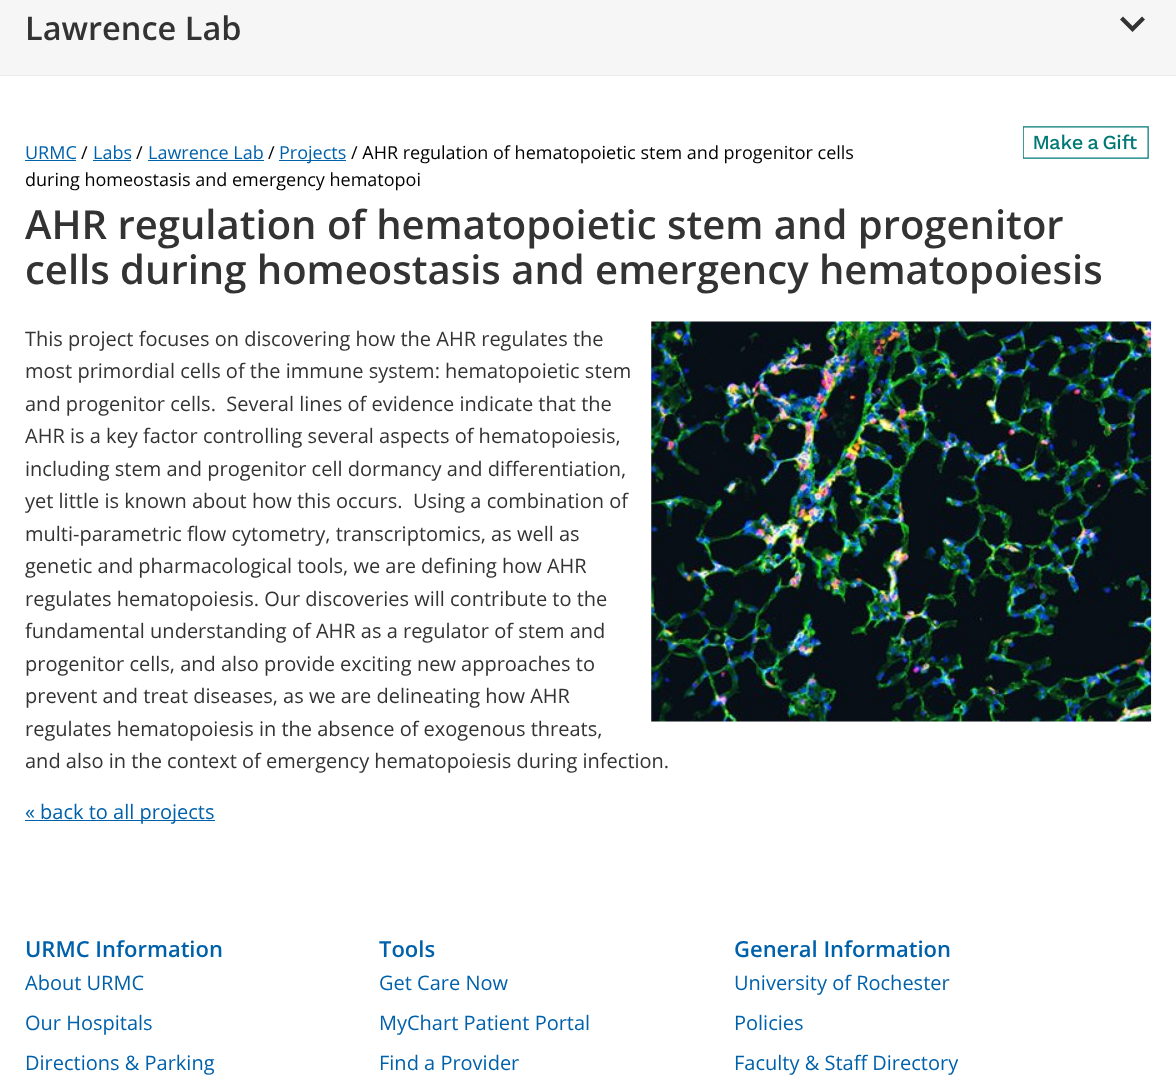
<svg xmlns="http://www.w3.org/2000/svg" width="1176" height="1080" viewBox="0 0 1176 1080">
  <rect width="100%" height="100%" fill="rgb(255,255,255)"/>
  <rect x="0" y="0" width="1176" height="75" fill="rgb(246,246,246)"/>
  <text x="25" y="40" font-family="Open Sans" font-size="32.5" font-weight="600" fill="rgb(51,51,51)">Lawrence Lab</text>
  <path d="M1123 16.5L1132.5 26L1142 16.5L1145 19.5L1132.5 32L1120 19.5Z" fill="rgb(51,51,51)"/>
  <rect x="0" y="75" width="1176" height="1" fill="rgb(236,236,236)"/>
  <text x="25" y="159" font-family="Open Sans" font-size="18" fill="rgb(0,97,171)">URMC</text>
  <rect x="25" y="160" width="51" height="1" fill="rgb(0,97,171)"/>
  <text x="81" y="159" font-family="Open Sans" font-size="18" fill="rgb(0,0,0)">/</text>
  <text x="93" y="159" font-family="Open Sans" font-size="18" fill="rgb(0,97,171)">Labs</text>
  <rect x="93" y="160" width="38" height="1" fill="rgb(0,97,171)"/>
  <text x="136" y="159" font-family="Open Sans" font-size="18" fill="rgb(0,0,0)">/</text>
  <text x="148" y="159" font-family="Open Sans" font-size="18" fill="rgb(0,97,171)">Lawrence Lab</text>
  <rect x="148" y="160" width="116" height="1" fill="rgb(0,97,171)"/>
  <text x="268" y="159" font-family="Open Sans" font-size="18" fill="rgb(0,0,0)">/</text>
  <rect x="279" y="160" width="67" height="1" fill="rgb(0,97,171)"/>
  <text x="279" y="159" font-family="Open Sans" font-size="18" fill="rgb(0,97,171)">Projects</text>
  <g font-family="Open Sans" font-size="18" fill="rgb(0,0,0)">
    <text x="351" y="159">/ AHR regulation of hematopoietic stem and progenitor cells</text>
    <text x="25" y="186">during homeostasis and emergency hematopoi</text>
  </g>
  <image x="1023" y="126" width="126" height="33" href="pic1.png"/>
  <g font-family="Open Sans" font-size="40" font-weight="600" fill="rgb(51,51,51)">
    <text>
      <tspan x="25" y="239">AHR regulation of hematopoietic stem and progenitor</tspan>
      <tspan x="25" y="284">cells during homeostasis and emergency hematopoiesis</tspan>
    </text>
  </g>
  <text x="25" y="346" font-family="Open Sans" font-size="20" fill="rgb(51,51,51)">This project focuses on discovering how the AHR regulates the</text>
  <image x="651" y="321" width="501" height="401" href="pic2.png"/>
  <g font-family="Open Sans" font-size="20" fill="rgb(51,51,51)">
    <text xml:space="preserve"><tspan x="25" y="378">most primordial cells of the immune system: hematopoietic stem</tspan><tspan x="25" y="411">and progenitor cells.  Several lines of evidence indicate that the</tspan><tspan x="25" y="443">AHR is a key factor controlling several aspects of hematopoiesis,</tspan><tspan x="25" y="476">including stem and progenitor cell dormancy and differentiation,</tspan><tspan x="25" y="508">yet little is known about how this occurs.  Using a combination of</tspan><tspan x="25" y="541">multi-parametric flow cytometry, transcriptomics, as well as</tspan><tspan x="25" y="573">genetic and pharmacological tools, we are defining how AHR</tspan><tspan x="25" y="606">regulates hematopoiesis. Our discoveries will contribute to the</tspan><tspan x="25" y="638">fundamental understanding of AHR as a regulator of stem and</tspan><tspan x="25" y="671">progenitor cells, and also provide exciting new approaches to</tspan><tspan x="25" y="703">prevent and treat diseases, as we are delineating how AHR</tspan><tspan x="25" y="736">regulates hematopoiesis in the absence of exogenous threats,</tspan><tspan x="25" y="768">and also in the context of emergency hematopoiesis during infection.</tspan></text>
  </g>
  <rect x="25" y="820" width="190" height="1" fill="rgb(0,97,171)"/>
  <text x="25" y="819" font-family="Open Sans" font-size="20" fill="rgb(0,97,171)">« back to all projects</text>
  <text x="25" y="957" font-family="Open Sans" font-size="22" font-weight="600" fill="rgb(0,97,171)">URMC Information</text>
  <g font-family="Open Sans" font-size="20" fill="rgb(0,97,171)">
    <text x="25" y="990">About URMC</text>
    <text x="25" y="1030">Our Hospitals</text>
    <text x="25" y="1070">Directions &amp; Parking</text>
  </g>
  <text x="379" y="957" font-family="Open Sans" font-size="22" font-weight="600" fill="rgb(0,97,171)">Tools</text>
  <g font-family="Open Sans" font-size="20" fill="rgb(0,97,171)">
    <text x="379" y="990">Get Care Now</text>
    <text x="379" y="1030">MyChart Patient Portal</text>
    <text x="379" y="1070">Find a Provider</text>
  </g>
  <text x="734" y="957" font-family="Open Sans" font-size="22" font-weight="600" fill="rgb(0,97,171)">General Information</text>
  <g font-family="Open Sans" font-size="20" fill="rgb(0,97,171)">
    <text x="734" y="990">University of Rochester</text>
    <text x="734" y="1030">Policies</text>
    <text x="734" y="1070">Faculty &amp; Staff Directory</text>
  </g>
</svg>
